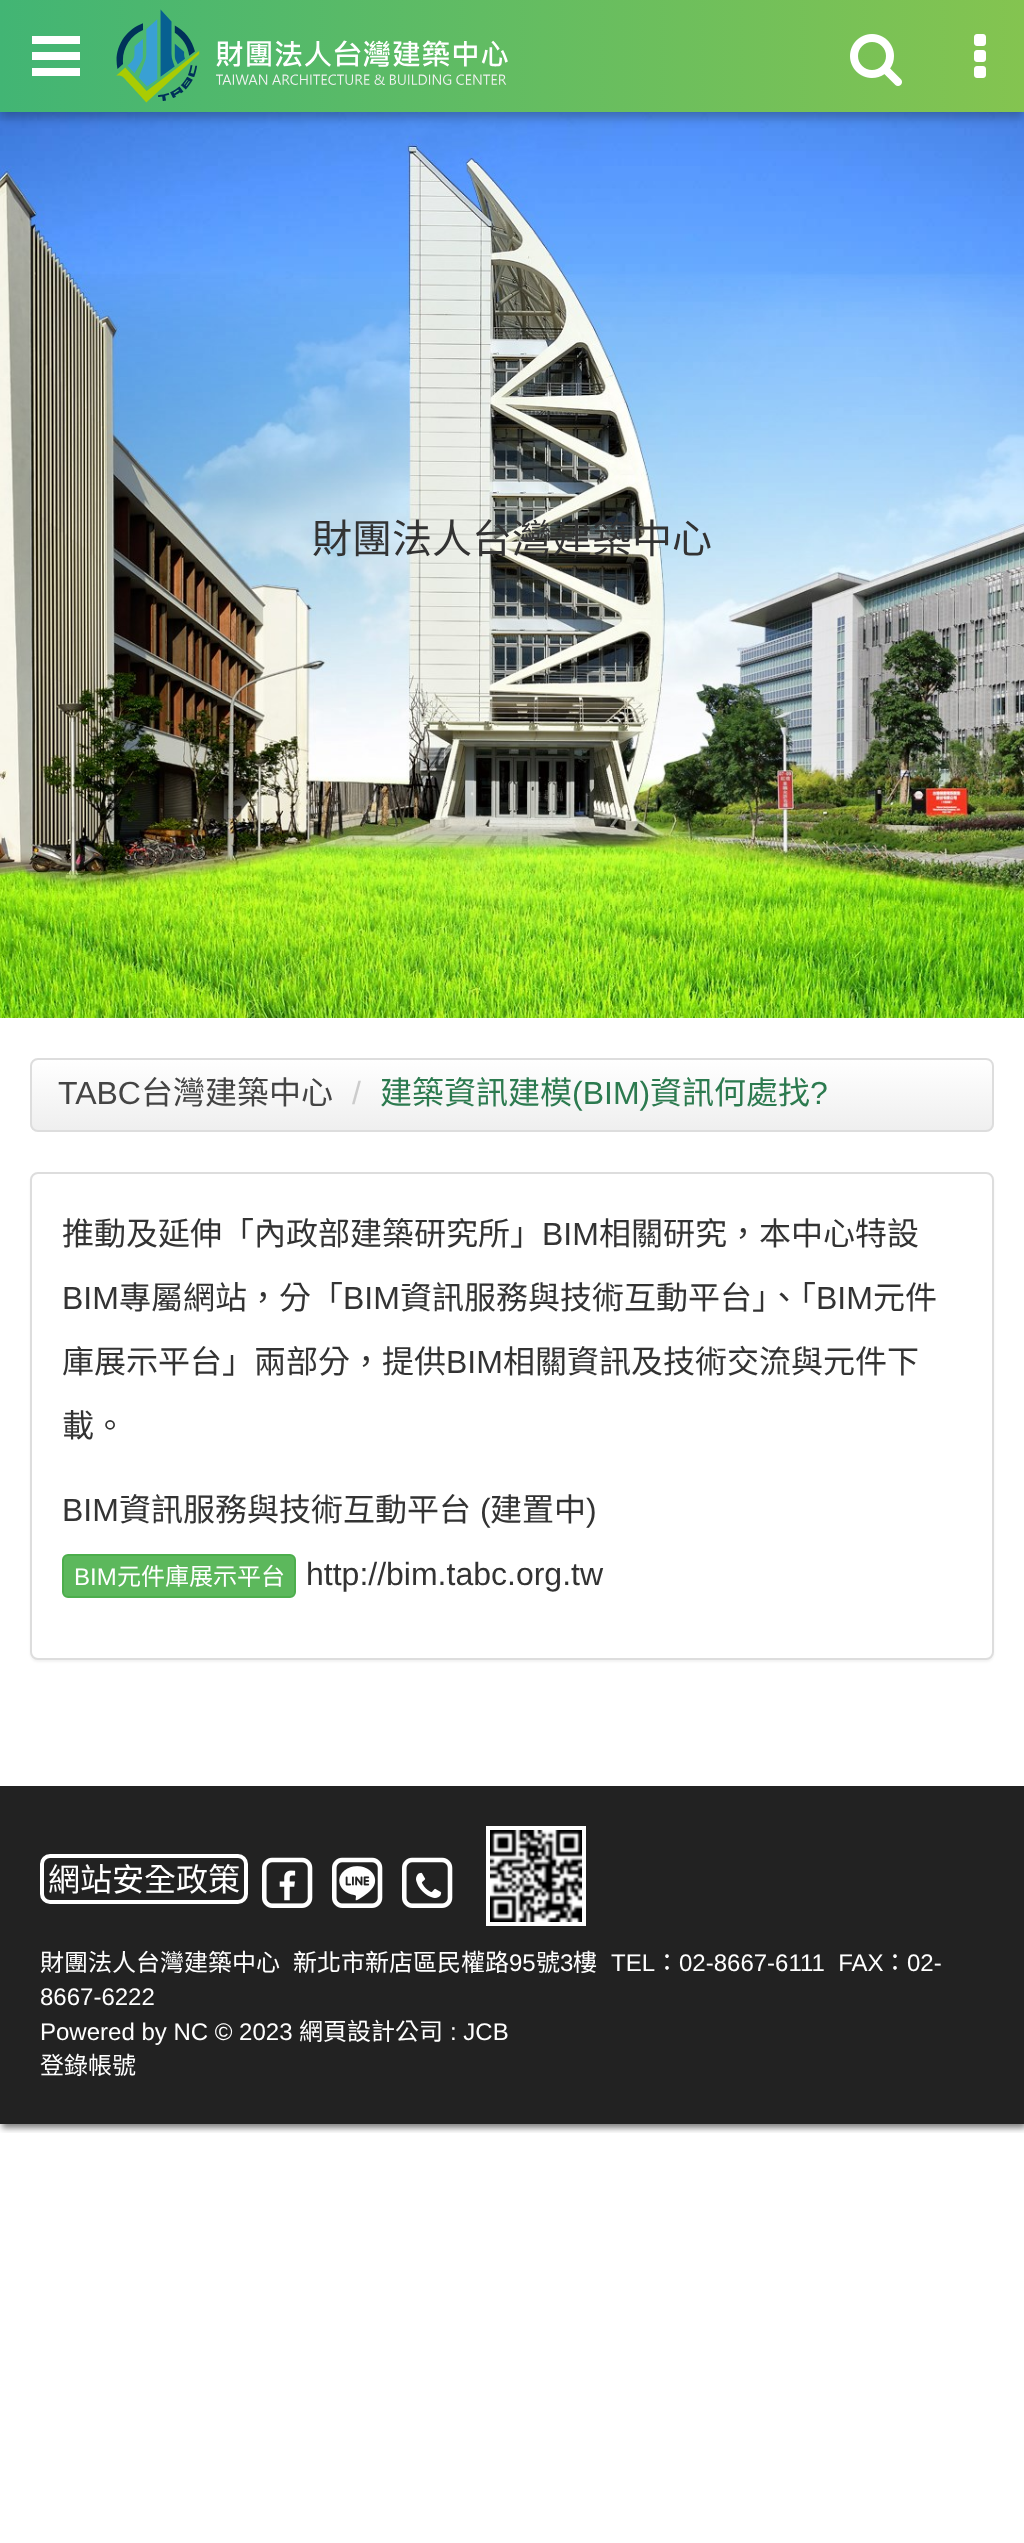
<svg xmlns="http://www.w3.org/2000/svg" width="1024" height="2543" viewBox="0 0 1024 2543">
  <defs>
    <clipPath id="clip1"><rect x="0" y="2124" width="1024" height="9"/></clipPath>
    <linearGradient id="g1" gradientUnits="userSpaceOnUse" x1="0" y1="56" x2="1024" y2="56"><stop offset="0" stop-color="rgb(66,181,116)"/><stop offset="1" stop-color="rgb(132,196,80)"/></linearGradient>
    <clipPath id="clip2"><rect x="30" y="1058" width="964" height="74" rx="8"/></clipPath>
    <linearGradient id="g2" gradientUnits="userSpaceOnUse" x1="32" y1="1060" x2="32" y2="1130"><stop offset="0" stop-color="rgb(255,255,255)"/><stop offset="1" stop-color="rgb(239,239,239)"/></linearGradient>
  </defs>
  <rect width="100%" height="100%" fill="rgb(255,255,255)"/>
  <g clip-path="url(#clip1)">
    <rect x="2" y="4" width="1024" height="2124" fill="rgba(0,0,0,0.5)" filter="blur(3px)"/>
  </g>
  <image x="0" y="112" width="1024" height="906" href="pic4.png"/>
  <rect x="0" y="6" width="1024" height="112" fill="rgba(0,0,0,0.25)" filter="blur(5px)"/>
  <rect x="0" y="0" width="1024" height="112" fill="url(#g1)"/>
  <rect x="32" y="52" width="48" height="8" fill="rgb(255,255,255)"/>
  <rect x="32" y="36" width="48" height="8" fill="rgb(255,255,255)"/>
  <rect x="32" y="68" width="48" height="8" fill="rgb(255,255,255)"/>
  <image x="974" y="34" width="12" height="44" href="pic1.png"/>
  <image x="116" y="9" width="392" height="94" href="pic2.png"/>
  <image x="850" y="34" width="52" height="52" href="pic3.png"/>
  <text x="312" y="553" font-family="Noto Sans CJK TC" font-size="40" fill="rgb(51,51,51)">財團法人台灣建築中心</text>
  <g clip-path="url(#clip2)">
    <rect x="30" y="1060" width="964" height="70" fill="url(#g2)"/>
  </g>
  <rect x="31" y="1059" width="962" height="72" rx="7" fill="none" stroke="rgb(221,221,221)" stroke-width="2"/>
  <text x="58" y="1104" font-family="Liberation Sans" font-size="32" fill="rgb(68,68,68)">TABC</text>
  <text x="141" y="1104" font-family="Noto Sans CJK TC" font-size="32" fill="rgb(68,68,68)">台灣建築中心</text>
  <text x="352" y="1104" font-family="Liberation Sans" font-size="32" fill="rgb(204,204,204)">/</text>
  <text x="380" y="1104" font-family="Noto Sans CJK TC" font-size="32" fill="rgb(44,122,79)">建築資訊建模</text>
  <text x="572" y="1104" font-family="Liberation Sans" font-size="32" fill="rgb(44,122,79)">(BIM)</text>
  <text x="650" y="1104" font-family="Noto Sans CJK TC" font-size="32" fill="rgb(44,122,79)">資訊何處找</text>
  <text x="810" y="1104" font-family="Liberation Sans" font-size="32" fill="rgb(44,122,79)">?</text>
  <rect x="30" y="1174" width="964" height="488" rx="8" fill="rgba(0,0,0,0.05)" filter="blur(1px)"/>
  <rect x="31" y="1173" width="962" height="486" rx="7" fill="rgb(255,255,255)" stroke="rgb(221,221,221)" stroke-width="2"/>
  <text x="62" y="1245" font-family="Noto Sans CJK TC" font-size="32" fill="rgb(51,51,51)">推動及延伸「內政部建築研究所」</text>
  <text x="542" y="1245" font-family="Liberation Sans" font-size="32" fill="rgb(51,51,51)">BIM</text>
  <text x="599" y="1245" font-family="Noto Sans CJK TC" font-size="32" fill="rgb(51,51,51)">相關研究，本中心特設</text>
  <text x="62" y="1309" font-family="Liberation Sans" font-size="32" fill="rgb(51,51,51)">BIM</text>
  <text x="119" y="1309" font-family="Noto Sans CJK TC" font-size="32" fill="rgb(51,51,51)">專屬網站，分「</text>
  <text x="343" y="1309" font-family="Liberation Sans" font-size="32" fill="rgb(51,51,51)">BIM</text>
  <text x="400" y="1309" font-family="Noto Sans CJK TC" font-size="32" fill="rgb(51,51,51)">資訊服務與技術互動平台」、「</text>
  <text x="816" y="1309" font-family="Liberation Sans" font-size="32" fill="rgb(51,51,51)">BIM</text>
  <g font-family="Noto Sans CJK TC" font-size="32" fill="rgb(51,51,51)">
    <text x="873" y="1309">元件</text>
    <text x="62" y="1373">庫展示平台」兩部分，提供</text>
  </g>
  <text x="446" y="1373" font-family="Liberation Sans" font-size="32" fill="rgb(51,51,51)">BIM</text>
  <g font-family="Noto Sans CJK TC" font-size="32" fill="rgb(51,51,51)">
    <text x="503" y="1373">相關資訊及技術交流與元件下</text>
    <text x="62" y="1437">載。</text>
  </g>
  <text x="62" y="1521" font-family="Liberation Sans" font-size="32" fill="rgb(51,51,51)">BIM</text>
  <text x="119" y="1521" font-family="Noto Sans CJK TC" font-size="32" fill="rgb(51,51,51)">資訊服務與技術互動平台</text>
  <text x="480" y="1521" font-family="Liberation Sans" font-size="32" fill="rgb(51,51,51)">(</text>
  <text x="490" y="1521" font-family="Noto Sans CJK TC" font-size="32" fill="rgb(51,51,51)">建置中</text>
  <text x="586" y="1521" font-family="Liberation Sans" font-size="32" fill="rgb(51,51,51)">)</text>
  <rect x="63" y="1555" width="232" height="42" rx="5" fill="rgb(92,184,92)" stroke="rgb(76,174,76)" stroke-width="2"/>
  <text x="74" y="1585" font-family="Liberation Sans" font-size="24" fill="rgb(255,255,255)">BIM</text>
  <text x="117" y="1585" font-family="Noto Sans CJK TC" font-size="24" fill="rgb(255,255,255)">元件庫展示平台</text>
  <text x="306" y="1585" font-family="Liberation Sans" font-size="32" fill="rgb(51,51,51)">http://bim.tabc.org.tw</text>
  <rect x="0" y="1786" width="1024" height="338" fill="rgb(34,34,34)"/>
  <rect x="488" y="1828" width="96" height="96" fill="none" stroke="rgb(255,255,255)" stroke-width="4"/>
  <rect x="42" y="1856" width="204" height="46" rx="8" fill="none" stroke="rgb(255,255,255)" stroke-width="4"/>
  <text x="48" y="1891" font-family="Noto Sans CJK TC" font-size="32" fill="rgb(255,255,255)">網站安全政策</text>
  <image x="262" y="1857" width="51" height="51" href="pic5.png"/>
  <image x="279" y="1870" width="17" height="31" href="pic6.png"/>
  <image x="332" y="1857" width="51" height="51" href="pic5.png"/>
  <image x="339" y="1866" width="37" height="35" href="pic7.png"/>
  <image x="402" y="1857" width="51" height="51" href="pic5.png"/>
  <image x="416" y="1872" width="26" height="26" href="pic8.png"/>
  <image x="490" y="1830" width="92" height="92" href="pic9.png"/>
  <g font-family="Noto Sans CJK TC" font-size="24" fill="rgb(255,255,255)">
    <text x="40" y="1971">財團法人台灣建築中心</text>
    <text x="293" y="1971">新北市新店區民權路</text>
  </g>
  <text x="509" y="1971" font-family="Liberation Sans" font-size="24" fill="rgb(255,255,255)">95</text>
  <text x="536" y="1971" font-family="Noto Sans CJK TC" font-size="24" fill="rgb(255,255,255)">號</text>
  <text x="560" y="1971" font-family="Liberation Sans" font-size="24" fill="rgb(255,255,255)">3</text>
  <text x="573" y="1971" font-family="Noto Sans CJK TC" font-size="24" fill="rgb(255,255,255)">樓</text>
  <text x="611" y="1971" font-family="Liberation Sans" font-size="24" fill="rgb(255,255,255)">TEL</text>
  <text x="655" y="1971" font-family="Noto Sans CJK TC" font-size="24" fill="rgb(255,255,255)">：</text>
  <text x="679" y="1971" font-family="Liberation Sans" font-size="24" fill="rgb(255,255,255)" xml:space="preserve">02-8667-6111  FAX</text>
  <text x="883" y="1971" font-family="Noto Sans CJK TC" font-size="24" fill="rgb(255,255,255)">：</text>
  <g font-family="Liberation Sans" font-size="24" fill="rgb(255,255,255)">
    <text x="907" y="1971">02-</text>
    <text>
      <tspan x="40" y="2005">8667-6222</tspan>
      <tspan x="40" y="2040">Powered by NC © 2023</tspan>
    </text>
  </g>
  <text x="299" y="2040" font-family="Noto Sans CJK TC" font-size="24" fill="rgb(255,255,255)">網頁設計公司</text>
  <text x="450" y="2040" font-family="Liberation Sans" font-size="24" fill="rgb(255,255,255)">: JCB</text>
  <text x="40" y="2074" font-family="Noto Sans CJK TC" font-size="24" fill="rgb(255,255,255)">登錄帳號</text>
</svg>
